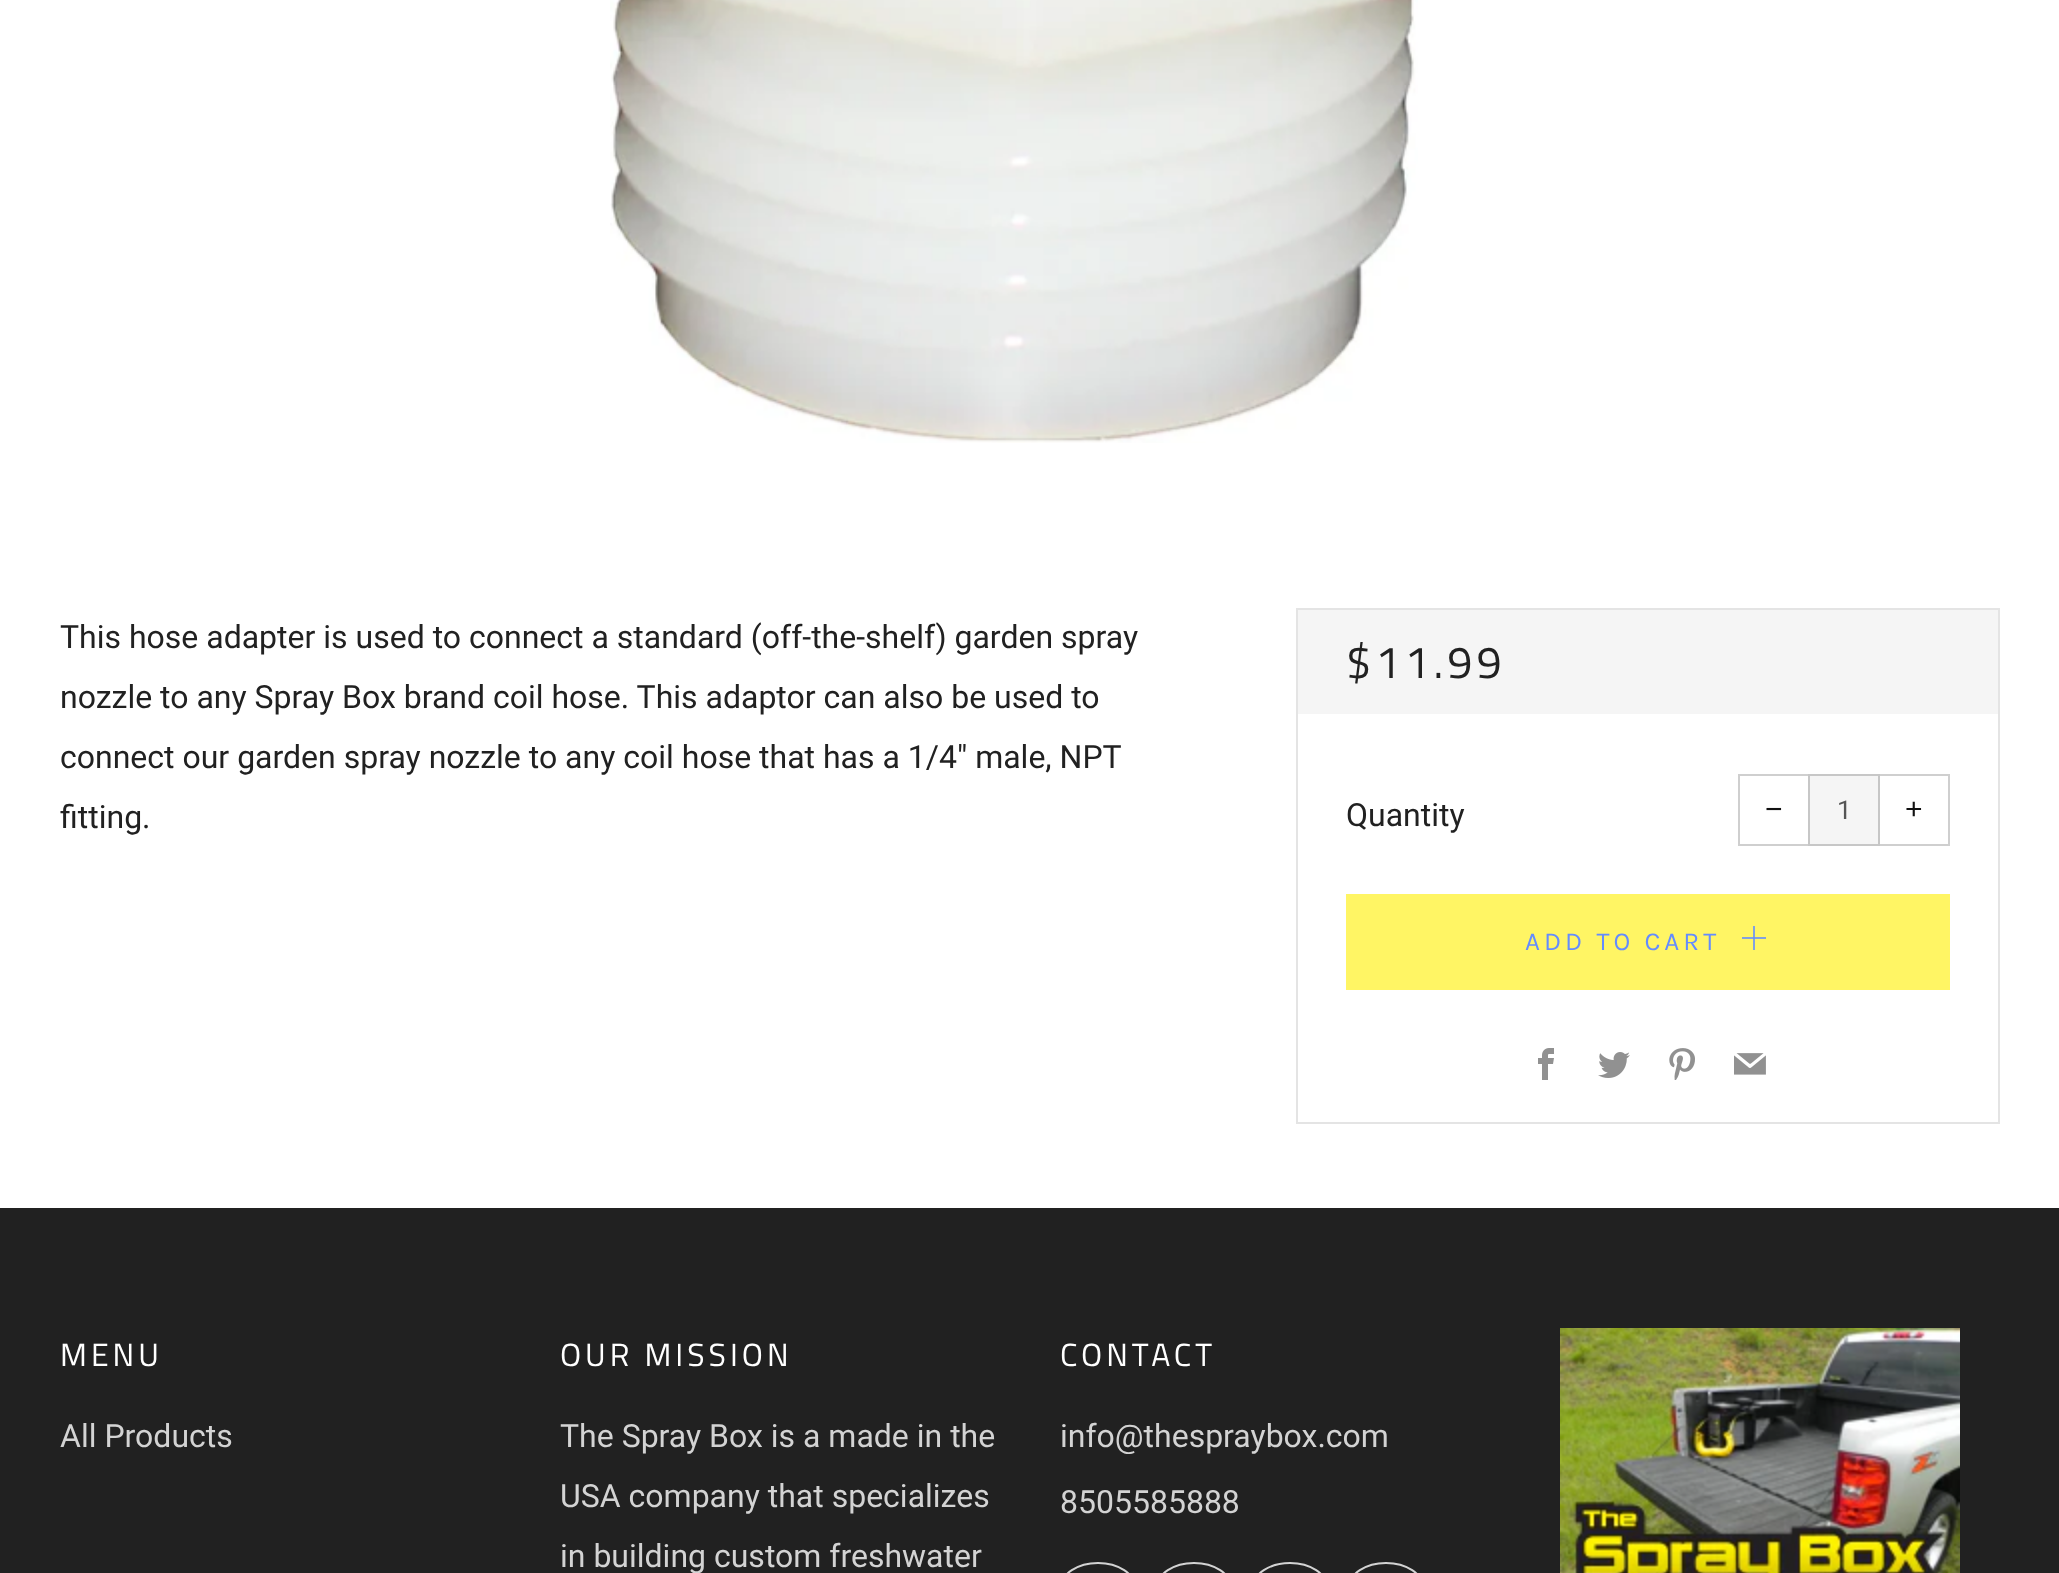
<svg xmlns="http://www.w3.org/2000/svg" width="2059" height="1573" viewBox="0 0 2059 1573">
  <rect width="100%" height="100%" fill="rgb(255,255,255)"/>
  <image x="610" y="0" width="808" height="443" href="pic1.png"/>
  <g font-family="Roboto" font-size="32" fill="rgb(33,33,33)">
    <text>
      <tspan x="60" y="648">This hose adapter is used to connect a standard (off-the-shelf) garden spray</tspan>
      <tspan x="60" y="708">nozzle to any Spray Box brand coil hose. This adaptor can also be used to</tspan>
      <tspan x="60" y="768">connect our garden spray nozzle to any coil hose that has a 1/4" male, NPT</tspan>
      <tspan x="60" y="828">fitting.</tspan>
    </text>
  </g>
  <rect x="1297" y="609" width="702" height="514" fill="none" stroke="rgb(228,228,228)" stroke-width="2"/>
  <rect x="1298" y="610" width="700" height="104" fill="rgb(245,245,245)"/>
  <text x="1346" y="678" font-family="Titillium Web" font-size="45" letter-spacing="4" fill="rgb(33,33,33)">$11.99</text>
  <text x="1346" y="826" font-family="Roboto" font-size="32" fill="rgb(33,33,33)">Quantity</text>
  <rect x="1739" y="775" width="70" height="70" fill="none" stroke="rgb(207,207,207)" stroke-width="2"/>
  <text x="1765" y="819" font-family="Liberation Sans" font-size="30" fill="rgb(17,17,17)">−</text>
  <rect x="1809" y="775" width="70" height="70" fill="rgb(245,245,245)" stroke="rgb(199,199,199)" stroke-width="2"/>
  <text x="1837" y="819" font-family="Roboto" font-size="26" fill="rgb(85,85,85)">1</text>
  <rect x="1878" y="774" width="2" height="72" fill="rgba(255,255,255,0.8)"/>
  <rect x="1879" y="775" width="70" height="70" fill="none" stroke="rgba(17,17,17,0.2)" stroke-width="2"/>
  <text x="1905" y="819" font-family="Liberation Sans" font-size="30" fill="rgb(17,17,17)">+</text>
  <rect x="1346" y="894" width="604" height="96" fill="rgb(255,245,100)"/>
  <text x="1525" y="950" font-family="Karla" font-size="26" letter-spacing="4" fill="rgb(100,140,255)">ADD TO CART</text>
  <image x="1742" y="926" width="24" height="24" href="pic2.png"/>
  <image x="1538" y="1048" width="16" height="32" href="pic3.png"/>
  <image x="1598" y="1052" width="32" height="26" href="pic4.png"/>
  <image x="1669" y="1048" width="26" height="32" href="pic5.png"/>
  <image x="1734" y="1053" width="32" height="22" href="pic6.png"/>
  <rect x="0" y="1208" width="2059" height="365" fill="rgb(33,33,33)"/>
  <text x="60" y="1366" font-family="Titillium Web" font-size="32" letter-spacing="4" fill="rgb(255,255,255)">MENU</text>
  <text x="60" y="1447" font-family="Roboto" font-size="32" fill="rgb(211,211,211)">All Products</text>
  <text x="560" y="1366" font-family="Titillium Web" font-size="32" letter-spacing="4" fill="rgb(255,255,255)">OUR MISSION</text>
  <g font-family="Roboto" font-size="32" fill="rgb(211,211,211)">
    <text>
      <tspan x="560" y="1447">The Spray Box is a made in the</tspan>
      <tspan x="560" y="1507">USA company that specializes</tspan>
      <tspan x="560" y="1567">in building custom freshwater</tspan>
    </text>
  </g>
  <text x="1060" y="1366" font-family="Titillium Web" font-size="32" letter-spacing="4" fill="rgb(255,255,255)">CONTACT</text>
  <g font-family="Roboto" font-size="32" fill="rgb(211,211,211)">
    <text x="1060" y="1447">info@thespraybox.com</text>
    <text x="1060" y="1513">8505585888</text>
  </g>
  <rect x="1061" y="1563" width="74" height="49" rx="37" fill="none" stroke="rgb(211,211,211)" stroke-width="2"/>
  <rect x="1157" y="1563" width="74" height="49" rx="37" fill="none" stroke="rgb(211,211,211)" stroke-width="2"/>
  <rect x="1253" y="1563" width="74" height="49" rx="37" fill="none" stroke="rgb(211,211,211)" stroke-width="2"/>
  <rect x="1349" y="1563" width="74" height="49" rx="37" fill="none" stroke="rgb(211,211,211)" stroke-width="2"/>
  <image x="1560" y="1328" width="400" height="245" href="pic7.png"/>
</svg>
